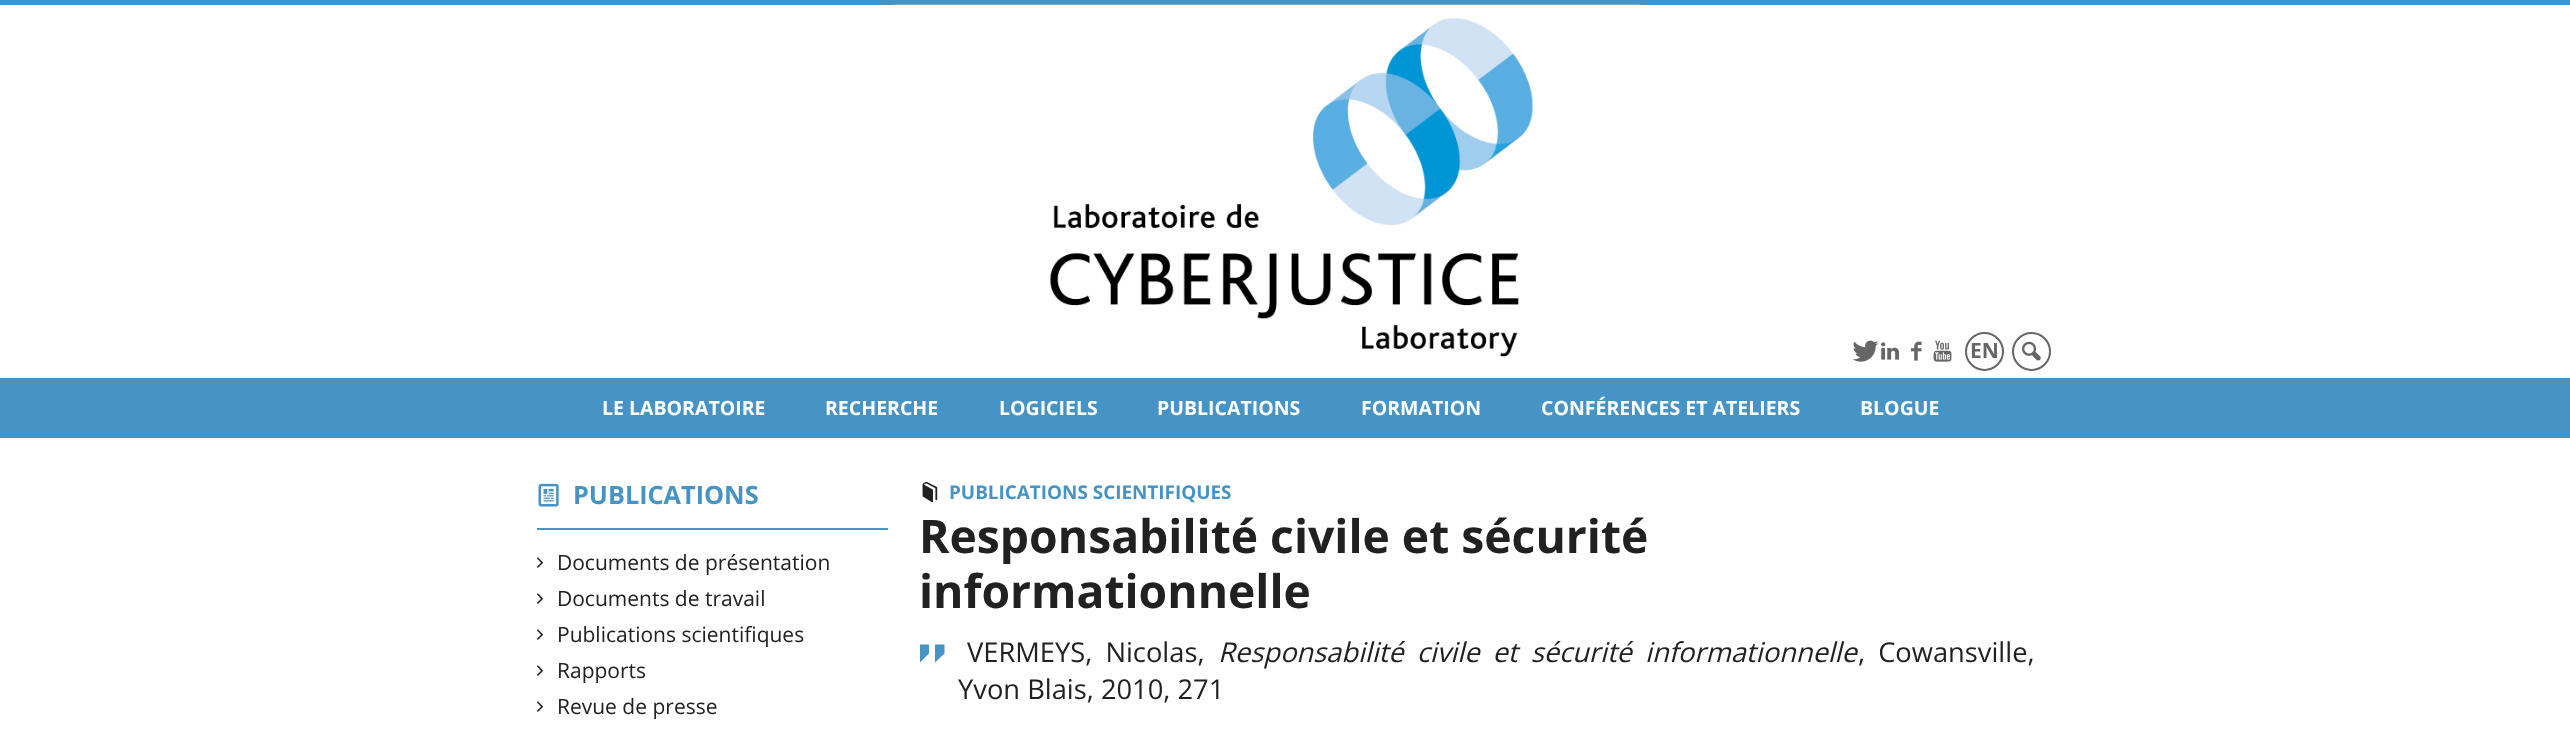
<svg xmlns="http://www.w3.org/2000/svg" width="2570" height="729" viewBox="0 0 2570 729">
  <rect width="100%" height="100%" fill="rgb(255,255,255)"/>
  <rect x="0" y="0" width="2570" height="5" fill="rgb(70,148,197)"/>
  <image x="894" y="4" width="746" height="353" href="pic1.png"/>
  <image x="1852" y="340" width="27" height="22" href="pic2.png"/>
  <image x="1881" y="342" width="18" height="18" href="pic3.png"/>
  <image x="1911" y="341" width="11" height="20" href="pic4.png"/>
  <image x="1933" y="340" width="19" height="22" href="pic5.png"/>
  <circle cx="1984.5" cy="351.5" r="18.5" fill="none" stroke="rgb(102,102,102)" stroke-width="2"/>
  <text x="1970" y="358" font-family="Open Sans" font-size="21" font-weight="bold" fill="rgb(102,102,102)">EN</text>
  <circle cx="2031.5" cy="351.5" r="18.5" fill="none" stroke="rgb(102,102,102)" stroke-width="2"/>
  <image x="2022" y="341" width="19" height="20" href="pic6.png"/>
  <rect x="0" y="378" width="2570" height="60" fill="rgb(70,148,197)"/>
  <g font-family="Open Sans" font-size="19.5" font-weight="bold" fill="rgb(255,255,255)">
    <text x="602" y="415">LE LABORATOIRE</text>
    <text x="825" y="415">RECHERCHE</text>
    <text x="999" y="415">LOGICIELS</text>
    <text x="1157" y="415">PUBLICATIONS</text>
    <text x="1361" y="415">FORMATION</text>
    <text x="1541" y="415">CONFÉRENCES ET ATELIERS</text>
    <text x="1860" y="415">BLOGUE</text>
  </g>
  <rect x="537" y="528" width="351" height="2" fill="rgb(70,148,197)"/>
  <image x="538" y="483" width="21" height="24" href="pic7.png"/>
  <text x="573" y="504" font-family="Open Sans" font-size="25.25" font-weight="bold" fill="rgb(70,148,197)">PUBLICATIONS</text>
  <image x="537" y="557" width="7" height="11" href="pic8.png"/>
  <text x="557" y="570" font-family="Open Sans" font-size="21" fill="rgb(33,33,33)">Documents de présentation</text>
  <image x="537" y="593" width="7" height="11" href="pic8.png"/>
  <text x="557" y="606" font-family="Open Sans" font-size="21" fill="rgb(33,33,33)">Documents de travail</text>
  <image x="537" y="629" width="7" height="11" href="pic8.png"/>
  <text x="557" y="642" font-family="Open Sans" font-size="21" fill="rgb(33,33,33)">Publications scientifiques</text>
  <image x="537" y="665" width="7" height="11" href="pic8.png"/>
  <text x="557" y="678" font-family="Open Sans" font-size="21" fill="rgb(33,33,33)">Rapports</text>
  <image x="537" y="701" width="7" height="11" href="pic8.png"/>
  <text x="557" y="714" font-family="Open Sans" font-size="21" fill="rgb(33,33,33)">Revue de presse</text>
  <image x="922" y="482" width="16" height="21" href="pic9.png"/>
  <text x="949" y="499" font-family="Open Sans" font-size="18.9" font-weight="bold" fill="rgb(70,148,197)">PUBLICATIONS SCIENTIFIQUES</text>
  <g font-family="Open Sans" font-size="46.25" font-weight="bold" fill="rgb(33,33,33)">
    <text>
      <tspan x="919" y="553">Responsabilité civile et sécurité</tspan>
      <tspan x="919" y="608">informationnelle</tspan>
    </text>
  </g>
  <path d="M920 644.5H929V653.5L920 662.5ZM935 644.5H944.5V653.5L935 662.5Z" fill="rgb(70,148,197)"/>
  <text x="967" y="662" word-spacing="6" font-family="Open Sans" font-size="27.3" fill="rgb(33,33,33)">VERMEYS, Nicolas,</text>
  <text x="1218" y="662" word-spacing="6" font-family="Open Sans" font-size="27.3" font-style="italic" fill="rgb(33,33,33)">Responsabilité civile et sécurité informationnelle</text>
  <g font-family="Open Sans" font-size="27.3" fill="rgb(33,33,33)">
    <text x="1858" y="662" word-spacing="6">, Cowansville,</text>
    <text x="958" y="699">Yvon Blais, 2010, 271</text>
  </g>
</svg>
